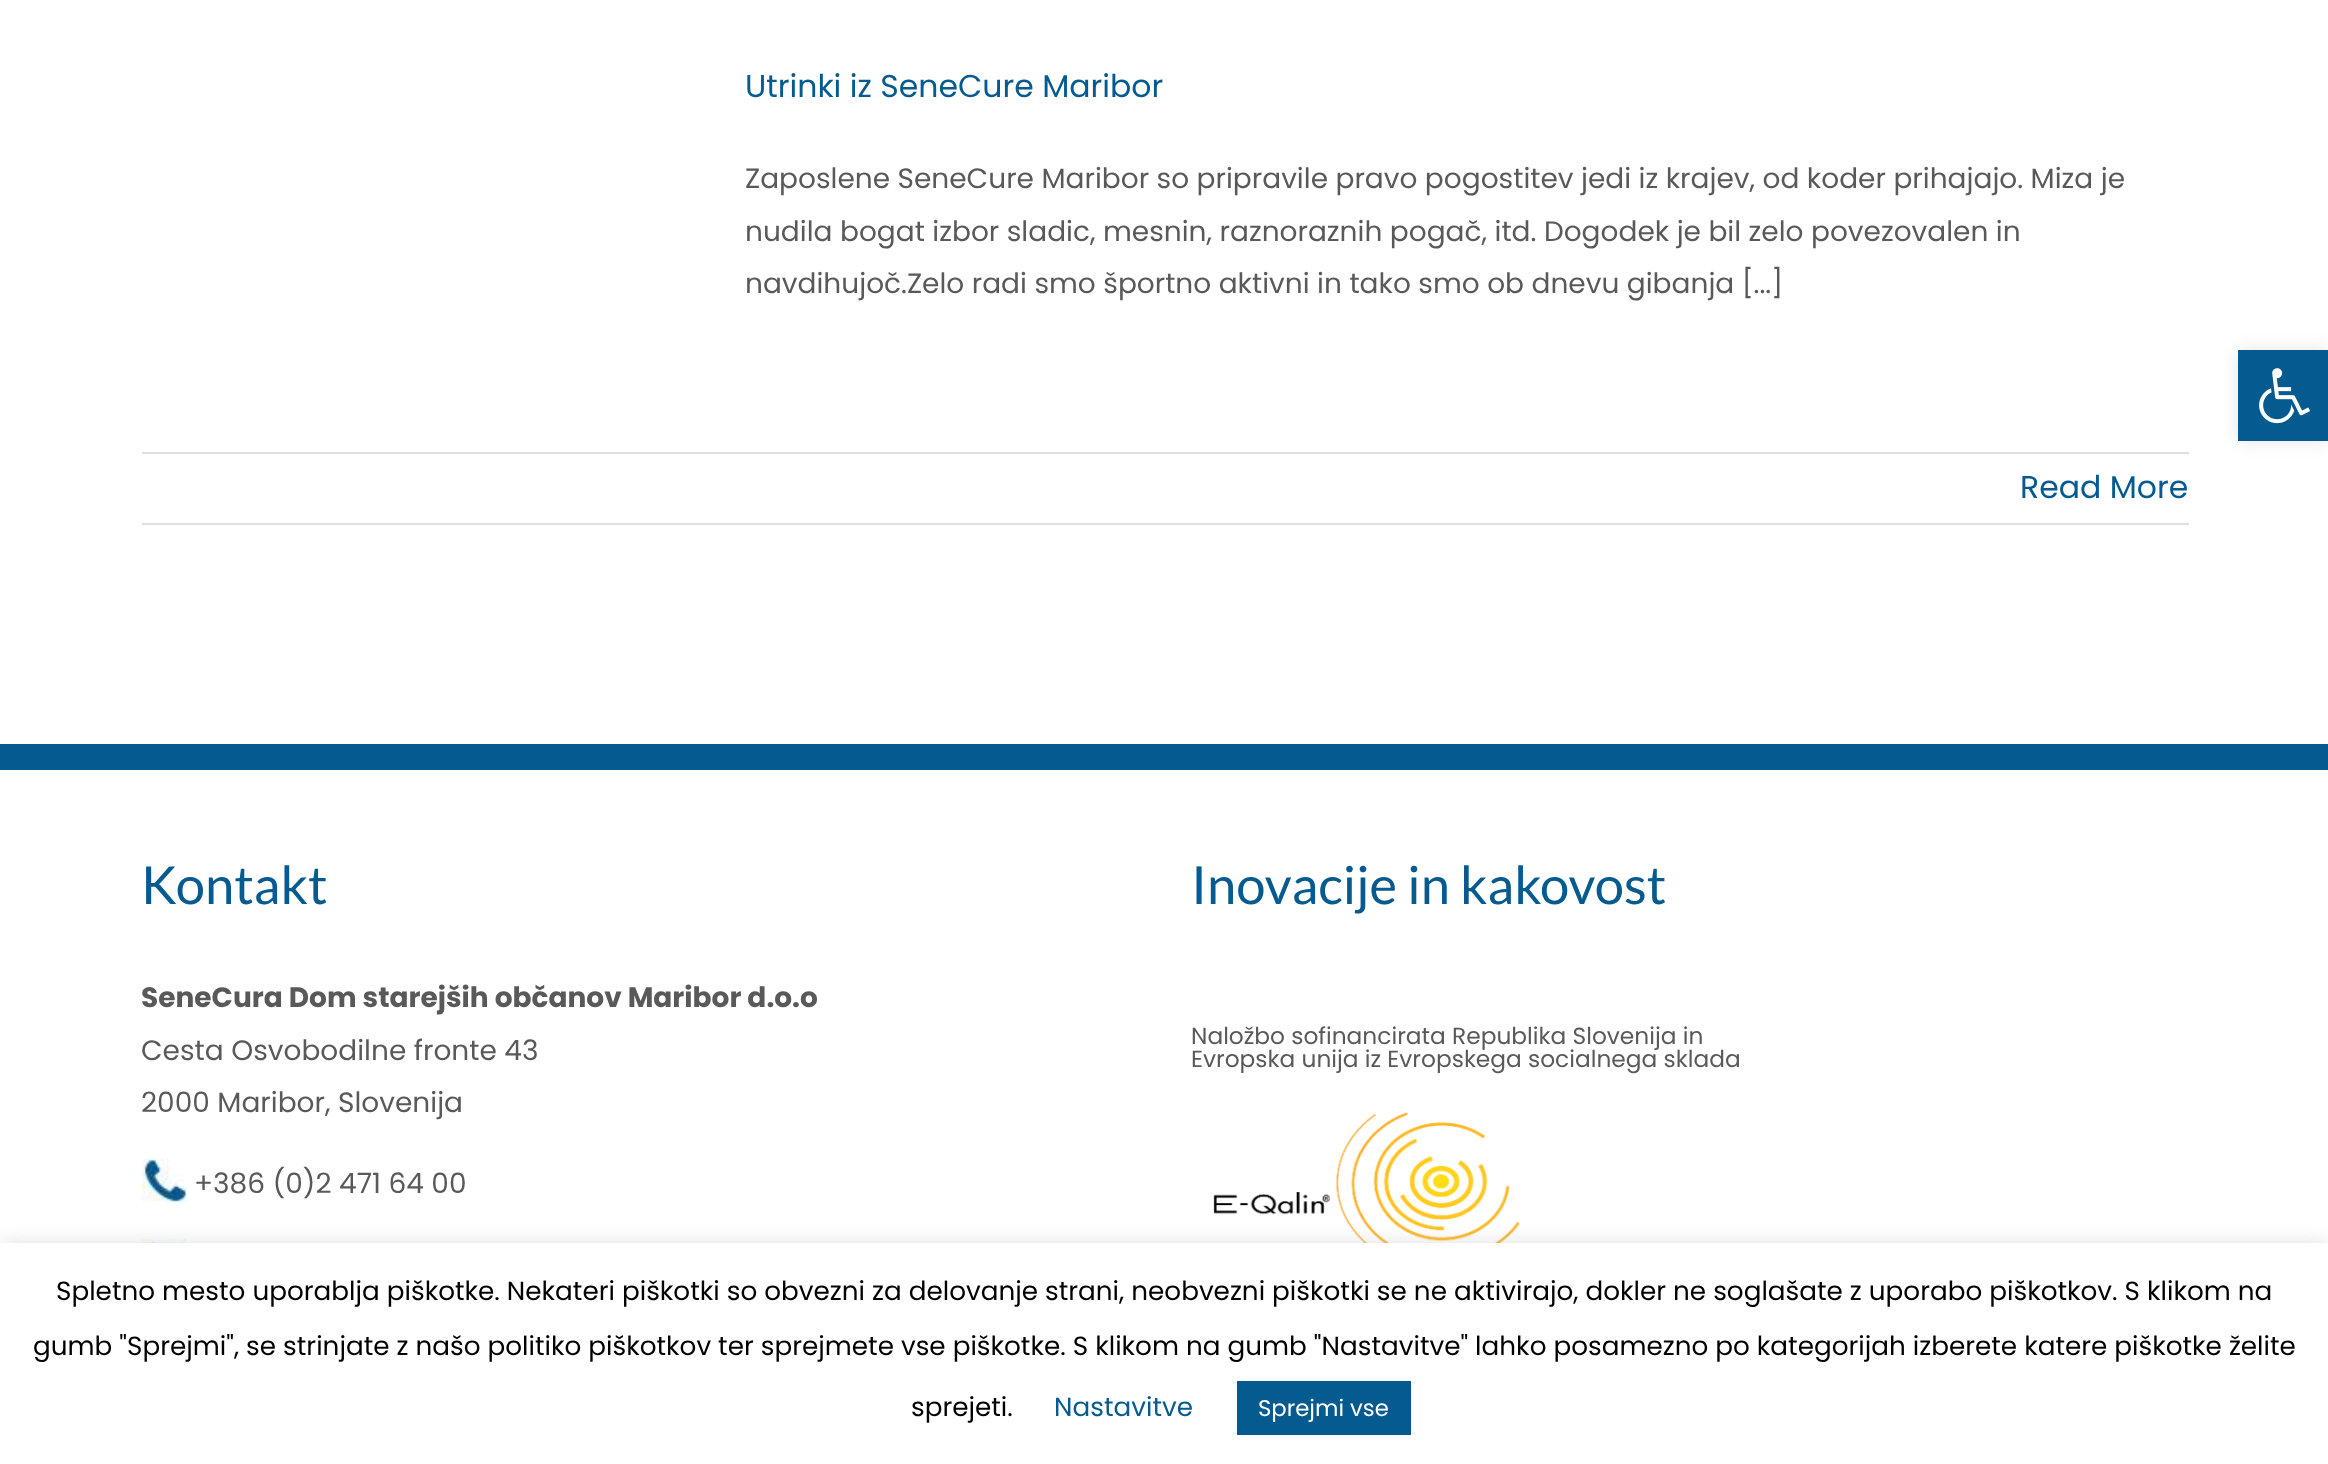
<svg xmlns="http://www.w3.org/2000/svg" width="2328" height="1464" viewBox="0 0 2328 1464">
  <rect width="100%" height="100%" fill="rgb(255,255,255)"/>
  <text x="745" y="97" font-family="Poppins" font-size="31.5" fill="rgb(5,90,143)">Utrinki iz SeneCure Maribor</text>
  <g font-family="Poppins" font-size="28" fill="rgb(89,89,89)">
    <text>
      <tspan x="745" y="188">Zaposlene SeneCure Maribor so pripravile pravo pogostitev jedi iz krajev, od koder prihajajo. Miza je</tspan>
      <tspan x="745" y="241">nudila bogat izbor sladic, mesnin, raznoraznih pogač, itd. Dogodek je bil zelo povezovalen in</tspan>
      <tspan x="745" y="293">navdihujoč.Zelo radi smo športno aktivni in tako smo ob dnevu gibanja [...]</tspan>
    </text>
  </g>
  <rect x="142" y="452" width="2047" height="2" fill="rgb(224,222,222)"/>
  <rect x="142" y="523" width="2047" height="2" fill="rgb(224,222,222)"/>
  <text x="2020" y="498" font-family="Poppins" font-size="31.5" fill="rgb(5,90,143)">Read More</text>
  <rect x="0" y="744" width="2328" height="26" fill="rgb(5,90,143)"/>
  <text x="141" y="904" font-family="Lato" font-size="52.5" fill="rgb(5,90,143)">Kontakt</text>
  <text x="141" y="1007" font-family="Poppins" font-size="28" font-weight="bold" fill="rgb(89,89,89)">SeneCura Dom starejših občanov Maribor d.o.o</text>
  <g font-family="Poppins" font-size="28" fill="rgb(89,89,89)">
    <text>
      <tspan x="141" y="1060">Cesta Osvobodilne fronte 43</tspan>
      <tspan x="141" y="1112">2000 Maribor, Slovenija</tspan>
    </text>
  </g>
  <image x="141" y="1158" width="47" height="45" href="pic1.png"/>
  <text x="194" y="1193" font-family="Poppins" font-size="28" fill="rgb(89,89,89)">+386 (0)2 471 64 00</text>
  <image x="141" y="1239" width="47" height="4" href="pic2.png"/>
  <text x="1191" y="904" font-family="Lato" font-size="52.5" fill="rgb(5,90,143)">Inovacije in kakovost</text>
  <g font-family="Poppins" font-size="23.3" fill="rgb(89,89,89)">
    <text>
      <tspan x="1191" y="1044">Naložbo sofinancirata Republika Slovenija in</tspan>
      <tspan x="1191" y="1067">Evropska unija iz Evropskega socialnega sklada</tspan>
    </text>
  </g>
  <image x="1213" y="1112" width="307" height="131" href="pic3.png"/>
  <rect x="2238" y="350" width="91" height="91" fill="rgba(0,0,0,0.1)" filter="blur(9px)"/>
  <rect x="2238" y="350" width="90" height="91" fill="rgb(5,90,143)"/>
  <image x="2259" y="368" width="51" height="56" href="pic4.png"/>
  <rect x="0" y="1241" width="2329" height="222" fill="rgba(172,171,171,0.3)" filter="blur(9px)"/>
  <rect x="0" y="1243" width="2328" height="221" fill="rgb(255,255,255)"/>
  <g font-family="Poppins" font-size="26.25" fill="rgb(0,0,0)">
    <text x="56" y="1300">Spletno mesto uporablja piškotke. Nekateri piškotki so obvezni za delovanje strani, neobvezni piškotki se ne aktivirajo, dokler ne soglašate z uporabo piškotkov. S klikom na</text>
    <text x="33" y="1355">gumb "Sprejmi", se strinjate z našo politiko piškotkov ter sprejmete vse piškotke. S klikom na gumb "Nastavitve" lahko posamezno po kategorijah izberete katere piškotke želite</text>
    <text x="911" y="1416">sprejeti.</text>
  </g>
  <text x="1054" y="1416" font-family="Poppins" font-size="26.25" fill="rgb(5,90,143)">Nastavitve</text>
  <rect x="1237" y="1381" width="174" height="54" fill="rgb(5,90,143)"/>
  <text x="1258" y="1416" font-family="Poppins" font-size="22.75" fill="rgb(255,255,255)">Sprejmi vse</text>
</svg>
